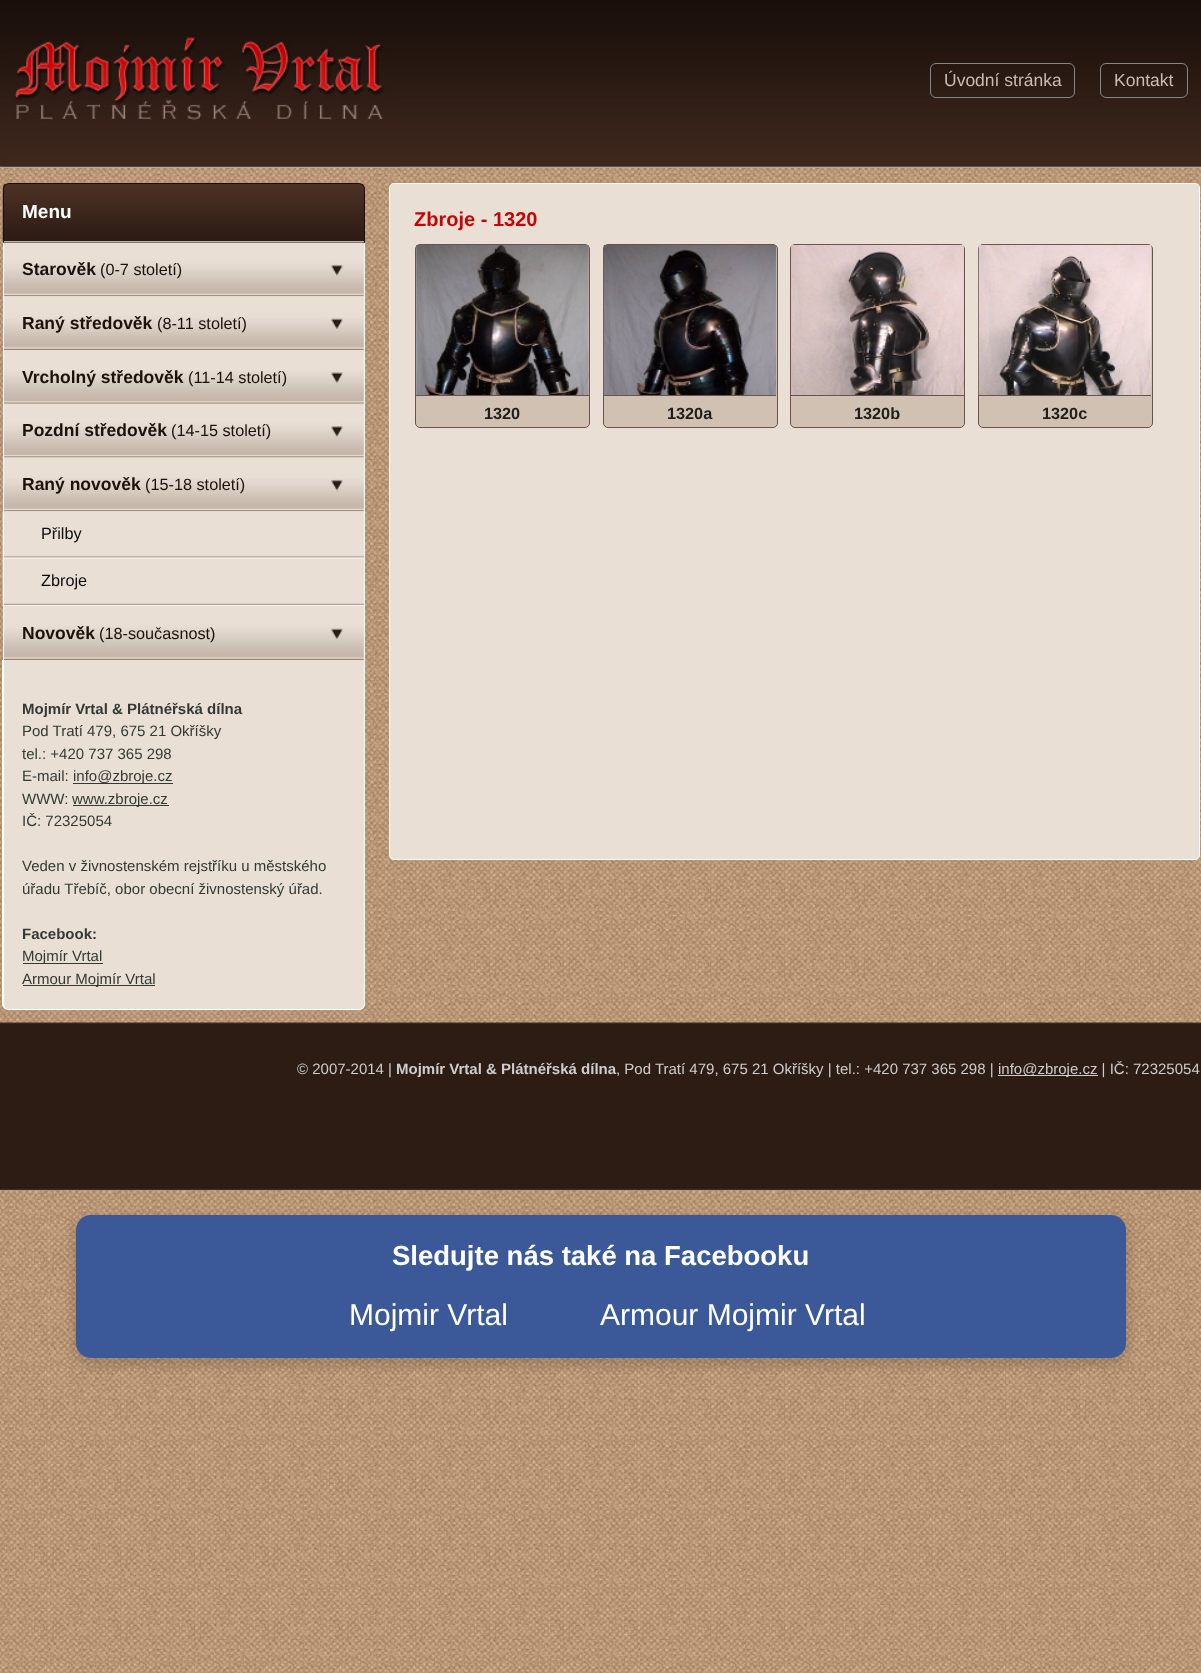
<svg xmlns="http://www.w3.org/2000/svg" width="1201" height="1673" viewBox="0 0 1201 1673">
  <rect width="100%" height="100%" fill="rgb(255,255,255)"/>
  <image x="0" y="168" width="1201" height="1505" href="pic1.png"/>
  <rect x="0" y="167" width="1201" height="1" fill="rgb(236,250,255)"/>
  <image x="0" y="0" width="1201" height="168" href="pic2.png"/>
  <image x="2" y="30" width="398" height="137" href="pic3.png"/>
  <rect x="930.5" y="63.5" width="144" height="34" rx="5.5" fill="none" stroke="rgb(134,134,134)"/>
  <text x="944" y="86" font-family="Liberation Sans" font-size="17.5" fill="rgb(204,187,179)">Úvodní stránka</text>
  <rect x="1100.5" y="63.5" width="87" height="34" rx="5.5" fill="none" stroke="rgb(134,134,134)"/>
  <text x="1114" y="86" font-family="Liberation Sans" font-size="17.5" fill="rgb(204,187,179)">Kontakt</text>
  <rect x="3" y="183" width="362" height="827" rx="6" fill="rgb(233,223,213)"/>
  <image x="2" y="183" width="363" height="59" href="pic4.png"/>
  <path d="M9 183.5H359C362 183.5 364.5 186 364.5 189V242.5H3.5V189C3.5 186 6 183.5 9 183.5Z" fill="none" stroke="rgb(25,15,10)"/>
  <text x="22" y="218" font-family="Liberation Sans" font-size="19" font-weight="bold" fill="rgb(255,255,255)">Menu</text>
  <image x="3" y="242" width="361" height="55" href="pic5.png"/>
  <rect x="364" y="243" width="1" height="316" fill="rgb(255,255,255)"/>
  <rect x="3" y="243" width="1" height="161" fill="rgb(255,255,255)"/>
  <text x="22" y="275" font-family="Liberation Sans" font-size="17.5" font-weight="bold" fill="rgb(29,17,12)">Starověk</text>
  <text x="100" y="275" font-family="Liberation Sans" font-size="16.25" fill="rgb(29,17,12)">(0-7 století)</text>
  <image x="4" y="296" width="360" height="54" href="pic6.png"/>
  <text x="22" y="329" font-family="Liberation Sans" font-size="17.5" font-weight="bold" fill="rgb(29,17,12)">Raný středověk</text>
  <text x="157" y="329" font-family="Liberation Sans" font-size="16.25" fill="rgb(29,17,12)">(8-11 století)</text>
  <image x="4" y="370" width="360" height="34" href="pic7.png"/>
  <text x="22" y="383" font-family="Liberation Sans" font-size="17.5" font-weight="bold" fill="rgb(29,17,12)">Vrcholný středověk</text>
  <text x="188" y="383" font-family="Liberation Sans" font-size="16.25" fill="rgb(29,17,12)">(11-14 století)</text>
  <image x="3" y="403" width="361" height="55" href="pic8.png"/>
  <rect x="3" y="404" width="1" height="54" fill="rgb(255,255,255)"/>
  <text x="22" y="436" font-family="Liberation Sans" font-size="17.5" font-weight="bold" fill="rgb(29,17,12)">Pozdní středověk</text>
  <text x="171" y="436" font-family="Liberation Sans" font-size="16.25" fill="rgb(29,17,12)">(14-15 století)</text>
  <image x="3" y="457" width="361" height="55" href="pic9.png"/>
  <rect x="3" y="458" width="1" height="53" fill="rgb(255,255,255)"/>
  <text x="22" y="490" font-family="Liberation Sans" font-size="17.5" font-weight="bold" fill="rgb(29,17,12)">Raný novověk</text>
  <text x="145" y="490" font-family="Liberation Sans" font-size="16.25" fill="rgb(29,17,12)">(15-18 století)</text>
  <image x="2" y="511" width="362" height="48" href="pic10.png"/>
  <rect x="3" y="511" width="1" height="48" fill="rgb(255,255,255)"/>
  <text x="41" y="539" font-family="Liberation Sans" font-size="16.25" fill="rgb(11,11,11)">Přilby</text>
  <image x="2" y="558" width="363" height="49" href="pic11.png"/>
  <rect x="364" y="559" width="1" height="101" fill="rgb(255,255,255)"/>
  <rect x="3" y="559" width="1" height="101" fill="rgb(255,255,255)"/>
  <text x="41" y="586" font-family="Liberation Sans" font-size="16.25" fill="rgb(11,11,11)">Zbroje</text>
  <image x="4" y="606" width="360" height="54" href="pic12.png"/>
  <text x="22" y="639" font-family="Liberation Sans" font-size="17.5" font-weight="bold" fill="rgb(29,17,12)">Novověk</text>
  <text x="99" y="639" font-family="Liberation Sans" font-size="16.25" fill="rgb(29,17,12)">(18-současnost)</text>
  <path d="M2 660H365V1004C365 1007 362 1010 359 1010H9C5 1010 2 1007 2 1004ZM4 660H364V1004C364 1007 362 1009 359 1009H9C6 1009 4 1007 4 1004Z" fill="rgb(255,255,255)" fill-rule="evenodd"/>
  <text x="22" y="714" font-family="Liberation Sans" font-size="15" font-weight="bold" fill="rgb(53,57,52)">Mojmír Vrtal &amp; Plátnéřská dílna</text>
  <g font-family="Liberation Sans" font-size="15" fill="rgb(53,57,52)">
    <text>
      <tspan x="22" y="736">Pod Tratí 479, 675 21 Okříšky</tspan>
      <tspan x="22" y="759">tel.: +420 737 365 298</tspan>
      <tspan x="22" y="781">E-mail:</tspan>
    </text>
  </g>
  <rect x="73" y="783" width="100" height="1" fill="rgb(53,57,52)"/>
  <g font-family="Liberation Sans" font-size="15" fill="rgb(53,57,52)">
    <text x="73" y="781">info@zbroje.cz</text>
    <text x="22" y="804">WWW:</text>
  </g>
  <rect x="73" y="805" width="96" height="1" fill="rgb(53,57,52)"/>
  <g font-family="Liberation Sans" font-size="15" fill="rgb(53,57,52)">
    <text x="72" y="804">www.zbroje.cz</text>
    <text x="22" y="826">IČ: 72325054</text>
    <text>
      <tspan x="22" y="871">Veden v živnostenském rejstříku u městského</tspan>
      <tspan x="22" y="894">úřadu Třebíč, obor obecní živnostenský úřad.</tspan>
    </text>
  </g>
  <text x="22" y="939" font-family="Liberation Sans" font-size="15" font-weight="bold" fill="rgb(53,57,52)">Facebook:</text>
  <rect x="23" y="963" width="80" height="1" fill="rgb(53,57,52)"/>
  <text x="22" y="961" font-family="Liberation Sans" font-size="15" fill="rgb(53,57,52)">Mojmír Vrtal</text>
  <rect x="23" y="985" width="132" height="1" fill="rgb(53,57,52)"/>
  <text x="22" y="984" font-family="Liberation Sans" font-size="15" fill="rgb(53,57,52)">Armour Mojmír Vrtal</text>
  <rect x="389.5" y="183.5" width="810" height="676" rx="4.5" fill="rgb(233,223,213)" stroke="rgb(255,255,255)"/>
  <text x="414" y="226" font-family="Liberation Sans" font-size="20" font-weight="bold" fill="rgb(197,5,5)">Zbroje - 1320</text>
  <rect x="415.5" y="244.5" width="174" height="183" rx="4.5" fill="rgb(208,193,179)" stroke="rgb(104,84,74)"/>
  <image x="416" y="245" width="173" height="150" href="pic13.png"/>
  <rect x="416" y="395" width="173" height="1" fill="rgb(104,84,74)"/>
  <text x="484" y="419" font-family="Liberation Sans" font-size="16.25" font-weight="bold" fill="rgb(31,30,28)">1320</text>
  <rect x="603.5" y="244.5" width="174" height="183" rx="4.5" fill="rgb(208,193,179)" stroke="rgb(104,84,74)"/>
  <image x="603" y="245" width="174" height="150" href="pic14.png"/>
  <rect x="604" y="395" width="172" height="1" fill="rgb(104,84,74)"/>
  <text x="667" y="419" font-family="Liberation Sans" font-size="16.25" font-weight="bold" fill="rgb(31,30,28)">1320a</text>
  <rect x="790.5" y="244.5" width="174" height="183" rx="4.5" fill="rgb(208,193,179)" stroke="rgb(104,84,74)"/>
  <image x="791" y="245" width="173" height="150" href="pic15.png"/>
  <rect x="791" y="395" width="173" height="1" fill="rgb(104,84,74)"/>
  <text x="854" y="419" font-family="Liberation Sans" font-size="16.25" font-weight="bold" fill="rgb(31,30,28)">1320b</text>
  <rect x="978.5" y="244.5" width="174" height="183" rx="4.5" fill="rgb(208,193,179)" stroke="rgb(104,84,74)"/>
  <image x="978" y="245" width="174" height="150" href="pic16.png"/>
  <rect x="979" y="395" width="172" height="1" fill="rgb(104,84,74)"/>
  <text x="1042" y="419" font-family="Liberation Sans" font-size="16.25" font-weight="bold" fill="rgb(31,30,28)">1320c</text>
  <image x="0" y="1022" width="1201" height="168" href="pic17.png"/>
  <text x="297" y="1074" font-family="Liberation Sans" font-size="15" fill="rgb(205,205,205)">© 2007-2014 |</text>
  <text x="396" y="1074" font-family="Liberation Sans" font-size="15" font-weight="bold" fill="rgb(205,205,205)">Mojmír Vrtal &amp; Plátnéřská dílna</text>
  <text x="616" y="1074" font-family="Liberation Sans" font-size="15" fill="rgb(205,205,205)">, Pod Tratí 479, 675 21 Okříšky | tel.: +420 737 365 298 |</text>
  <rect x="998" y="1075" width="100" height="1" fill="rgb(205,205,205)"/>
  <text x="998" y="1074" font-family="Liberation Sans" font-size="15" fill="rgb(205,205,205)">info@zbroje.cz | IČ: 72325054</text>
  <rect x="76" y="1220" width="1050" height="143" rx="15" fill="rgba(0,0,0,0.2)" filter="blur(7.5px)"/>
  <rect x="76" y="1215" width="1050" height="143" rx="15" fill="rgb(59,89,152)"/>
  <text x="392" y="1265" font-family="Liberation Sans" font-size="27.5" font-weight="bold" fill="rgb(255,255,255)">Sledujte nás také na Facebooku</text>
  <g font-family="Liberation Sans" font-size="30" fill="rgb(255,255,255)">
    <text x="349" y="1325">Mojmir Vrtal</text>
    <text x="600" y="1325">Armour Mojmir Vrtal</text>
  </g>
</svg>
